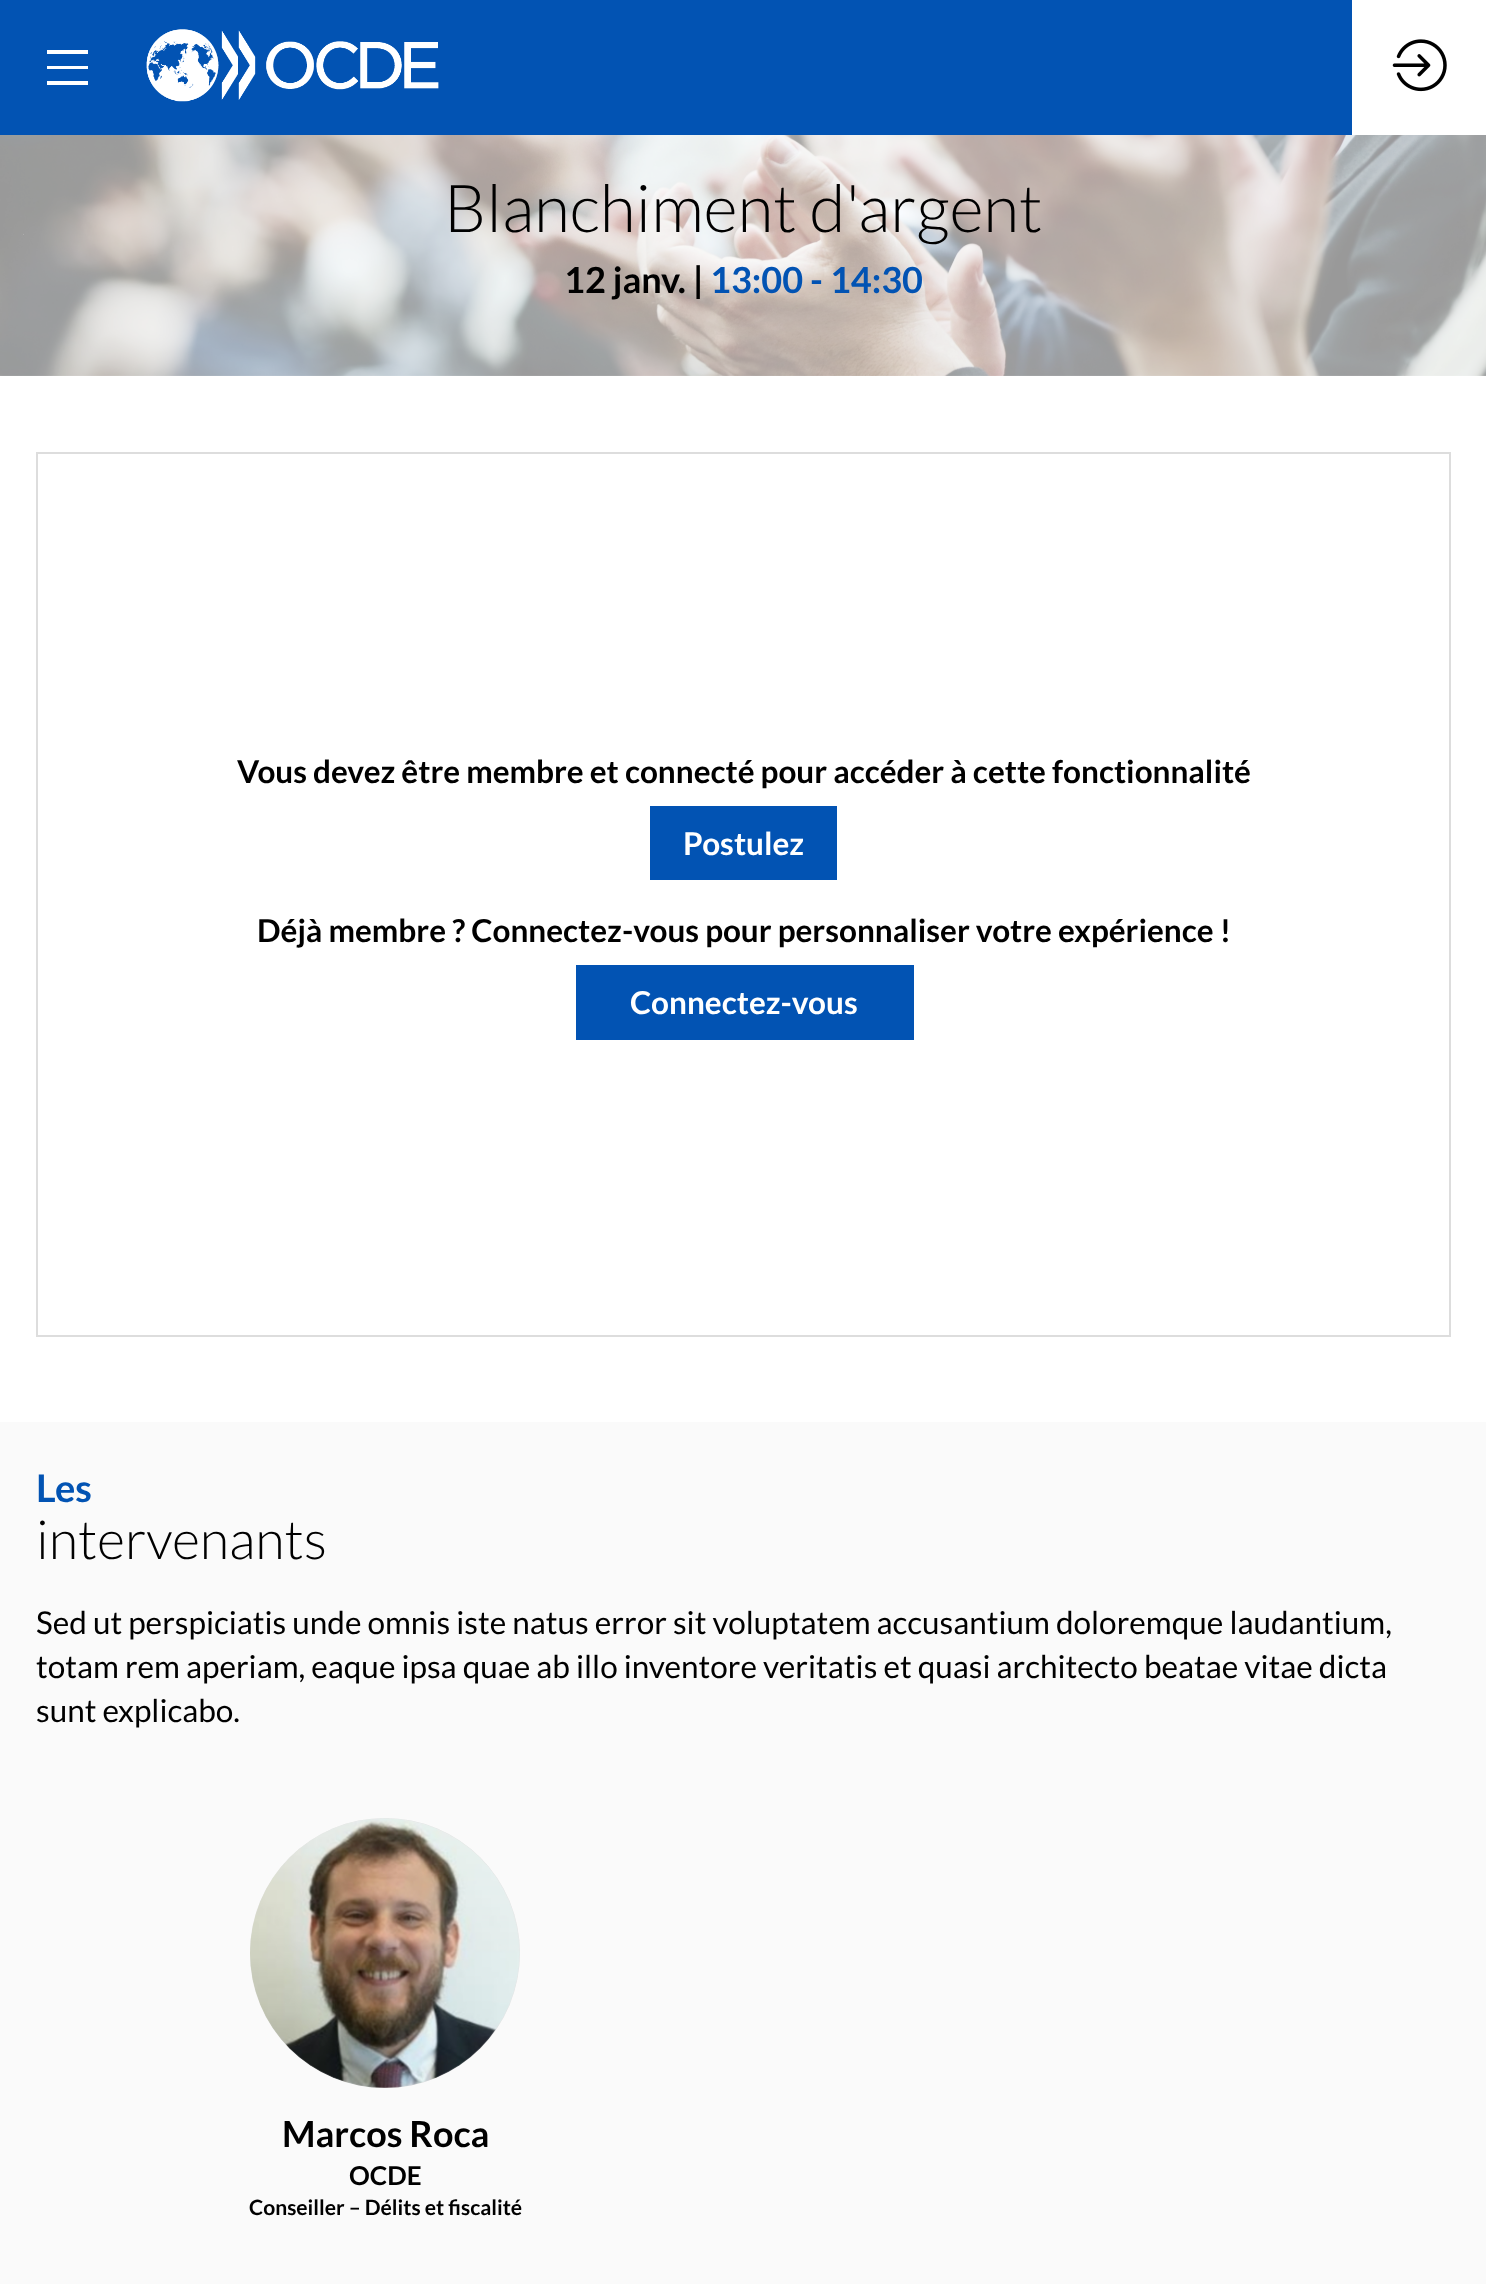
<svg xmlns="http://www.w3.org/2000/svg" width="1486" height="2284" viewBox="0 0 1486 2284">
  <rect width="100%" height="100%" fill="rgb(255,255,255)"/>
  <rect x="0" y="0" width="1352" height="135" fill="rgb(2,83,179)"/>
  <path d="M47 50H88V54H47ZM47 66H88V69H47ZM47 81H88V85H47Z" fill="rgb(255,255,255)"/>
  <image x="146" y="29" width="293" height="73" href="pic1.png"/>
  <image x="1392" y="39" width="55" height="53" href="pic2.png"/>
  <image x="0" y="135" width="1486" height="241" href="pic3.png"/>
  <text x="444" y="232" font-family="Lato" font-size="66" font-weight="300" fill="rgb(0,0,0)">Blanchiment d'argent</text>
  <text x="564" y="293" font-family="Lato" font-size="36" font-weight="bold" fill="rgb(0,0,0)">12 janv. |</text>
  <text x="710" y="293" font-family="Lato" font-size="36" font-weight="bold" fill="rgb(2,83,179)">13:00 - 14:30</text>
  <rect x="37" y="453" width="1413" height="883" fill="none" stroke="rgb(221,221,221)" stroke-width="2"/>
  <text x="237" y="783" font-family="Lato" font-size="31.5" font-weight="bold" fill="rgb(0,0,0)">Vous devez être membre et connecté pour accéder à cette fonctionnalité</text>
  <rect x="650" y="806" width="187" height="74" fill="rgb(2,83,179)"/>
  <text x="683" y="855" font-family="Lato" font-size="31.5" font-weight="bold" fill="rgb(255,255,255)">Postulez</text>
  <text x="257" y="942" font-family="Lato" font-size="31.5" font-weight="bold" fill="rgb(0,0,0)">Déjà membre ? Connectez-vous pour personnaliser votre expérience !</text>
  <rect x="576" y="965" width="338" height="75" fill="rgb(2,83,179)"/>
  <text x="630" y="1014" font-family="Lato" font-size="31.5" font-weight="bold" fill="rgb(255,255,255)">Connectez-vous</text>
  <rect x="0" y="1422" width="1486" height="862" fill="rgb(250,250,250)"/>
  <text x="36" y="1502" font-family="Lato" font-size="38" font-weight="bold" fill="rgb(2,83,179)">Les</text>
  <text x="36" y="1559" font-family="Lato" font-size="54" font-weight="300" fill="rgb(0,0,0)">intervenants</text>
  <g font-family="Lato" font-size="31.5" fill="rgb(0,0,0)">
    <text>
      <tspan x="36" y="1634">Sed ut perspiciatis unde omnis iste natus error sit voluptatem accusantium doloremque laudantium,</tspan>
      <tspan x="36" y="1678">totam rem aperiam, eaque ipsa quae ab illo inventore veritatis et quasi architecto beatae vitae dicta</tspan>
      <tspan x="36" y="1722">sunt explicabo.</tspan>
    </text>
  </g>
  <circle cx="385" cy="1953" r="135" fill="rgb(229,229,229)"/>
  <image x="250" y="1818" width="270" height="270" href="pic4.png"/>
  <text x="282" y="2147" font-family="Lato" font-size="36" font-weight="bold" fill="rgb(0,0,0)">Marcos Roca</text>
  <text x="349" y="2185" font-family="Lato" font-size="26" font-weight="bold" fill="rgb(0,0,0)">OCDE</text>
  <text x="249" y="2215" font-family="Lato" font-size="21.1" font-weight="bold" fill="rgb(0,0,0)">Conseiller – Délits et fiscalité</text>
</svg>
